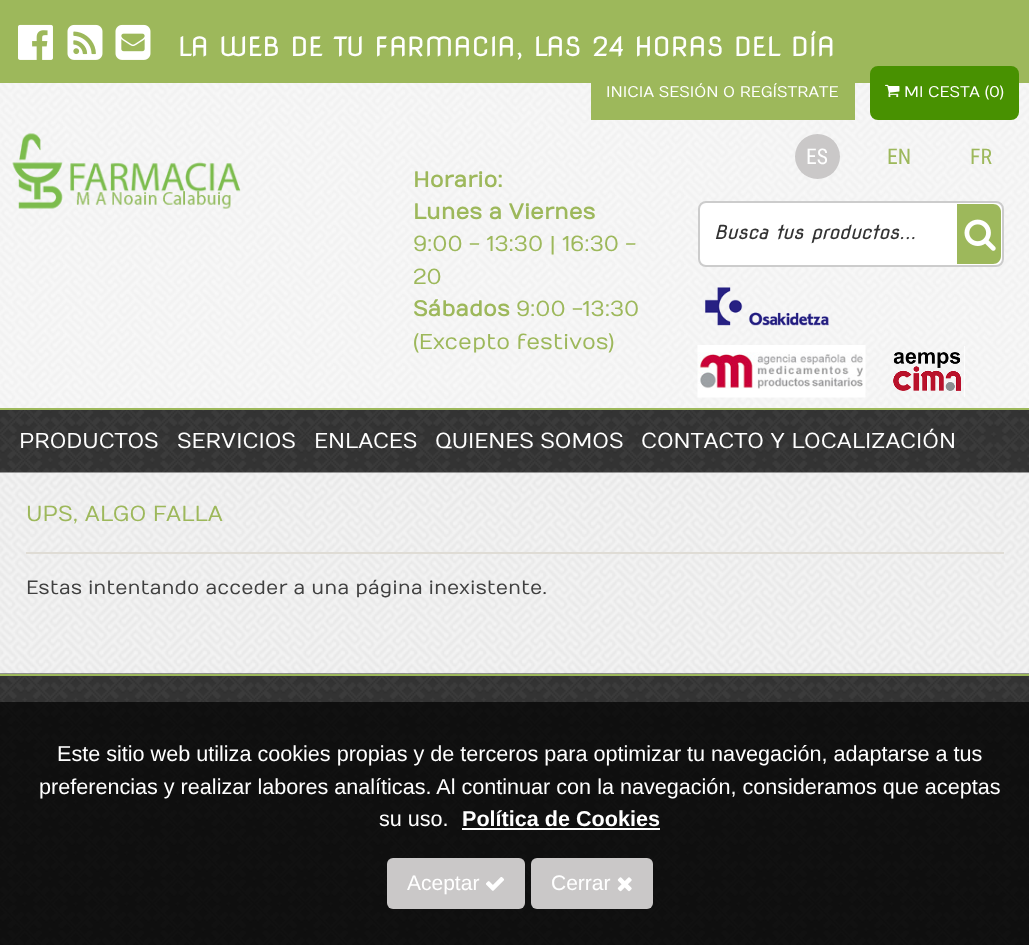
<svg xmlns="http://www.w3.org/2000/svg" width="1029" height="945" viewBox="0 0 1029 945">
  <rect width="100%" height="100%" fill="rgb(255,255,255)"/>
  <image x="0" y="83" width="1029" height="591" href="pic1.png"/>
  <rect x="0" y="83" width="1029" height="390" fill="rgba(255,255,255,0.4)"/>
  <rect x="0" y="0" width="1029" height="83" fill="rgb(157,184,91)"/>
  <image x="18" y="24" width="35" height="36" href="pic2.png"/>
  <image x="67" y="24" width="36" height="36" href="pic3.png"/>
  <image x="115" y="24" width="36" height="36" href="pic4.png"/>
  <text x="178" y="56" font-family="Nova Flat" font-size="26.4" fill="rgb(255,255,255)">LA WEB DE TU FARMACIA, LAS 24 HORAS DEL DÍA</text>
  <rect x="591" y="83" width="264" height="37" fill="rgb(157,184,91)"/>
  <text x="606" y="97" font-family="Numans" font-size="15.5" fill="rgb(255,255,255)">INICIA SESIÓN O REGÍSTRATE</text>
  <rect x="870" y="66" width="149" height="54" rx="8" fill="rgb(72,145,1)"/>
  <image x="885" y="84" width="15" height="14" href="pic5.png"/>
  <text x="904" y="97" font-family="Numans" font-size="15.5" fill="rgb(255,255,255)">MI CESTA (0)</text>
  <image x="12" y="133" width="229" height="76" href="pic6.png"/>
  <g font-family="Numans" font-size="21.6" font-weight="bold" fill="rgb(157,184,91)">
    <text>
      <tspan x="413" y="187">Horario:</tspan>
      <tspan x="413" y="219">Lunes a Viernes</tspan>
    </text>
  </g>
  <g font-family="Numans" font-size="21.6" fill="rgb(157,184,91)">
    <text>
      <tspan x="413" y="251">9:00 - 13:30 | 16:30 -</tspan>
      <tspan x="413" y="284">20</tspan>
    </text>
  </g>
  <text x="413" y="316" font-family="Numans" font-size="21.6" font-weight="bold" fill="rgb(157,184,91)">Sábados</text>
  <g font-family="Numans" font-size="21.6" fill="rgb(157,184,91)">
    <text x="516" y="316">9:00 -13:30</text>
    <text x="413" y="349">(Excepto festivos)</text>
  </g>
  <circle cx="817.5" cy="156.5" r="22.5" fill="rgb(202,200,200)"/>
  <text x="806" y="164" font-family="Roboto Condensed" font-size="21.6" fill="rgb(255,255,255)">ES</text>
  <g font-family="Roboto Condensed" font-size="21.6" fill="rgb(157,184,91)">
    <text x="887" y="164">EN</text>
    <text x="970" y="164">FR</text>
  </g>
  <rect x="699" y="202" width="304" height="64" rx="7" fill="rgb(255,255,255)" stroke="rgb(204,204,204)" stroke-width="2"/>
  <text x="714" y="239" font-family="Nova Flat" font-size="19.2" font-style="italic" fill="rgb(51,51,51)">Busca tus productos...</text>
  <path d="M957 204H993C997.5 204 1001 207.5 1001 212V256C1001 260.5 997.5 264 993 264H957Z" fill="rgb(157,184,91)"/>
  <image x="964" y="219" width="32" height="32" href="pic7.png"/>
  <image x="705" y="287" width="124" height="39" href="pic8.png"/>
  <image x="697" y="345" width="169" height="53" href="pic9.png"/>
  <image x="893" y="346" width="72" height="51" href="pic10.png"/>
  <image x="0" y="410" width="1029" height="63" href="pic11.png"/>
  <rect x="0" y="408" width="1029" height="2" fill="rgb(157,184,91)"/>
  <g font-family="Numans" font-size="21.6" fill="rgb(255,255,255)">
    <text x="19" y="448">PRODUCTOS</text>
    <text x="177" y="448">SERVICIOS</text>
    <text x="314" y="448">ENLACES</text>
    <text x="435" y="448">QUIENES SOMOS</text>
    <text x="641" y="448">CONTACTO Y LOCALIZACIÓN</text>
  </g>
  <rect x="26" y="552" width="978" height="2" fill="rgb(223,220,213)"/>
  <text x="26" y="521" font-family="Numans" font-size="21.75" fill="rgb(157,184,91)">UPS, ALGO FALLA</text>
  <text x="26" y="594" font-family="Numans" font-size="19.2" fill="rgb(64,64,64)">Estas intentando acceder a una página inexistente.</text>
  <image x="0" y="673" width="1029" height="272" href="pic12.png"/>
  <rect x="0" y="674" width="1029" height="2" fill="rgb(157,184,91)"/>
  <rect x="0" y="702" width="1029" height="243" fill="rgba(0,0,0,0.7)"/>
  <g font-family="Liberation Sans" font-size="21.6" fill="rgb(255,255,255)">
    <text x="57" y="761">Este sitio web utiliza cookies propias y de terceros para optimizar tu navegación, adaptarse a tus</text>
    <text x="39" y="794">preferencias y realizar labores analíticas. Al continuar con la navegación, consideramos que aceptas</text>
    <text x="379" y="826">su uso.</text>
  </g>
  <text x="462" y="826" font-family="Liberation Sans" font-size="21.6" font-weight="bold" fill="rgb(255,255,255)">Política de Cookies</text>
  <rect x="462" y="828" width="198" height="2" fill="rgb(255,255,255)"/>
  <rect x="387" y="858" width="138" height="51" rx="6" fill="rgb(202,200,200)"/>
  <text x="407" y="890" font-family="Liberation Sans" font-size="21" fill="rgb(255,255,255)">Aceptar</text>
  <image x="486" y="877" width="18" height="14" href="pic13.png"/>
  <rect x="531" y="858" width="122" height="51" rx="6" fill="rgb(202,200,200)"/>
  <text x="551" y="890" font-family="Liberation Sans" font-size="21" fill="rgb(255,255,255)">Cerrar</text>
  <image x="617" y="877" width="15" height="15" href="pic14.png"/>
</svg>
